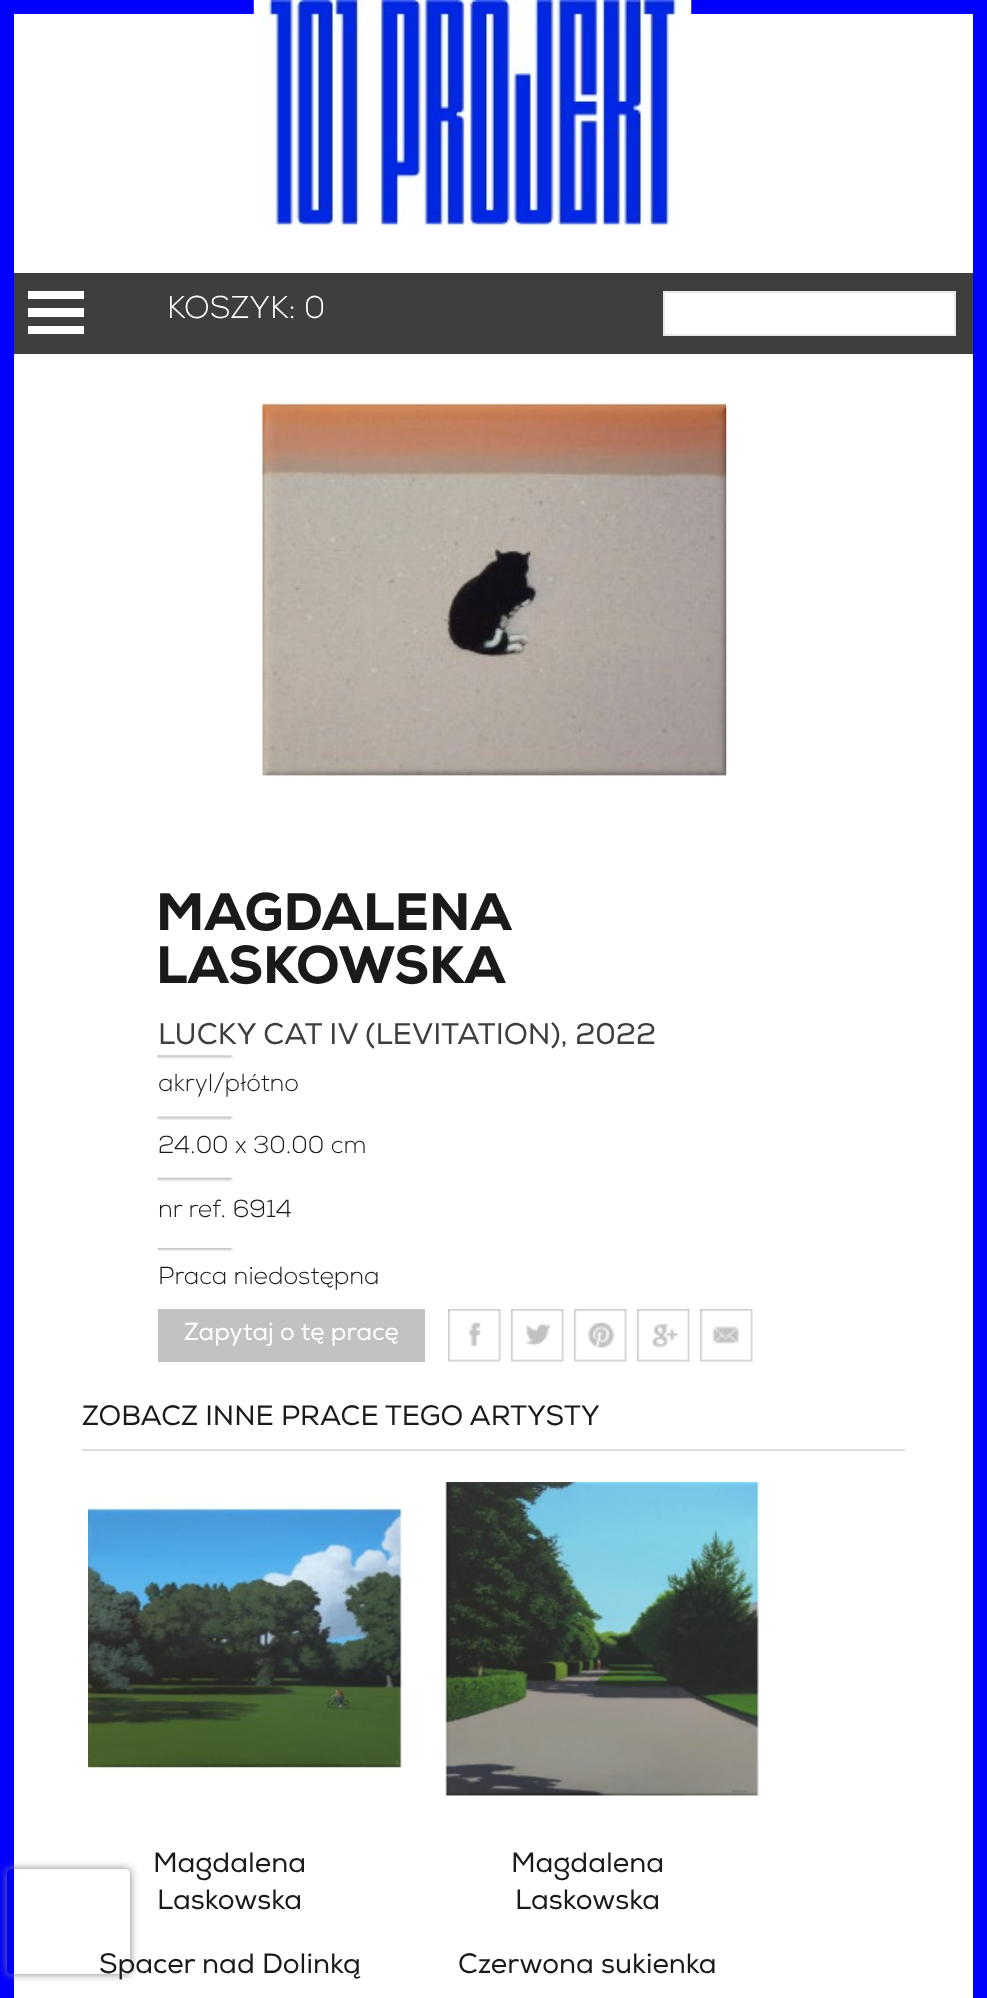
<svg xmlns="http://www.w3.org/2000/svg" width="987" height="1998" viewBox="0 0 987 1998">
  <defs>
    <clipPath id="clip1"><path d="M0 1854H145V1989H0ZM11 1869H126C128 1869 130 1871 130 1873V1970C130 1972 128 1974 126 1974H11C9 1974 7 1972 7 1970V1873C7 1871 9 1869 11 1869Z" clip-rule="evenodd"/></clipPath>
  </defs>
  <rect width="100%" height="100%" fill="rgb(255,255,255)"/>
  <rect x="7" y="7" width="973" height="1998" fill="none" stroke="rgb(0,0,255)" stroke-width="14"/>
  <image x="253" y="0" width="439" height="226" href="pic1.png"/>
  <rect x="14" y="273" width="959" height="81" fill="rgb(63,62,62)"/>
  <rect x="28" y="326" width="56" height="8" fill="rgb(255,255,255)"/>
  <rect x="28" y="308" width="56" height="9" fill="rgb(255,255,255)"/>
  <rect x="28" y="291" width="56" height="8" fill="rgb(255,255,255)"/>
  <text x="167" y="318" font-family="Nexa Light" font-size="31.5" font-weight="300" fill="rgb(255,255,255)">KOSZYK: 0</text>
  <rect x="664" y="292" width="291" height="43" fill="rgb(255,255,255)" stroke="rgb(233,233,233)" stroke-width="2"/>
  <g clip-path="url(#clip1)">
    <rect x="7" y="1869" width="123" height="105" rx="4" fill="rgb(128,128,128)" filter="blur(4.5px)"/>
  </g>
  <image x="262" y="402" width="465" height="376" href="pic2.png"/>
  <g font-family="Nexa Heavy" font-size="52.5" font-weight="900" fill="rgb(26,26,26)">
    <text>
      <tspan x="156" y="930">MAGDALENA</tspan>
      <tspan x="156" y="983">LASKOWSKA</tspan>
    </text>
  </g>
  <text x="158" y="1044" font-family="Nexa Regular" font-size="29.75" fill="rgb(63,62,62)">LUCKY CAT IV (LEVITATION), 2022</text>
  <image x="157" y="1055" width="76" height="4" href="pic3.png"/>
  <text x="158" y="1091" font-family="Nexa Light" font-size="24.5" font-weight="300" fill="rgb(26,26,26)">akryl/płótno</text>
  <image x="157" y="1116" width="76" height="4" href="pic4.png"/>
  <text x="158" y="1153" font-family="Nexa Light" font-size="24.5" font-weight="300" fill="rgb(26,26,26)">24.00 x 30.00 cm</text>
  <image x="157" y="1177" width="76" height="5" href="pic5.png"/>
  <text x="158" y="1217" font-family="Nexa Light" font-size="24.5" font-weight="300" fill="rgb(26,26,26)">nr ref. 6914</text>
  <image x="157" y="1247" width="76" height="5" href="pic6.png"/>
  <text x="158" y="1284" font-family="Nexa Light" font-size="24.5" font-weight="300" fill="rgb(26,26,26)">Praca niedostępna</text>
  <rect x="158" y="1309" width="267" height="53" fill="rgb(194,194,194)"/>
  <text x="184" y="1340" font-family="Nexa Regular" font-size="24.5" fill="rgb(255,255,255)">Zapytaj o tę pracę</text>
  <image x="448" y="1309" width="53" height="53" href="pic7.png"/>
  <image x="511" y="1309" width="53" height="53" href="pic8.png"/>
  <image x="574" y="1309" width="53" height="53" href="pic9.png"/>
  <image x="637" y="1309" width="53" height="53" href="pic10.png"/>
  <image x="700" y="1309" width="53" height="53" href="pic11.png"/>
  <rect x="82" y="1449" width="823" height="2" fill="rgb(222,222,222)"/>
  <text x="82" y="1425" font-family="Nexa Regular" font-size="28" fill="rgb(26,26,26)">ZOBACZ INNE PRACE TEGO ARTYSTY</text>
  <image x="88" y="1501" width="314" height="270" href="pic12.png"/>
  <g font-family="Nexa Regular" font-size="28" fill="rgb(26,26,26)">
    <text x="153" y="1872">Magdalena</text>
    <text x="157" y="1909">Laskowska</text>
    <text x="99" y="1973">Spacer nad Dolinką</text>
  </g>
  <image x="445" y="1482" width="314" height="314" href="pic13.png"/>
  <g font-family="Nexa Regular" font-size="28" fill="rgb(26,26,26)">
    <text x="511" y="1872">Magdalena</text>
    <text x="515" y="1909">Laskowska</text>
    <text x="458" y="1973">Czerwona sukienka</text>
  </g>
</svg>
